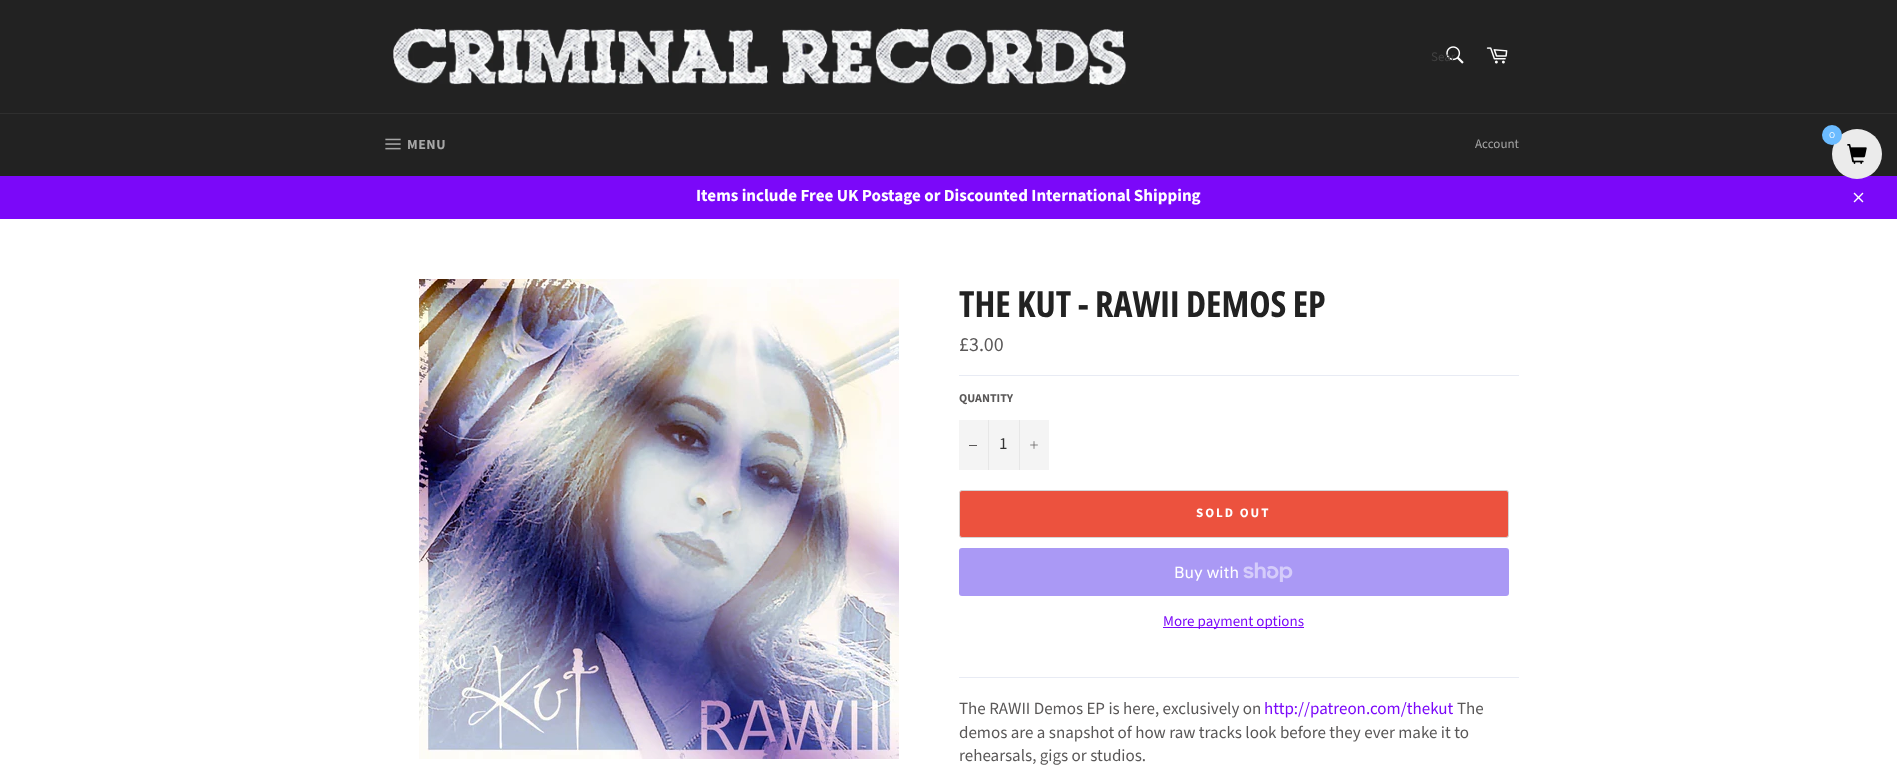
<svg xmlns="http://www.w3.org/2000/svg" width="1897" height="772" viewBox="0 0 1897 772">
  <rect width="100%" height="100%" fill="rgb(34,34,34)"/>
  <image x="393" y="28" width="733" height="57" href="pic1.png"/>
  <image x="1446" y="46" width="18" height="18" href="pic2.png"/>
  <text x="1431" y="61" font-family="Source Sans Pro" font-size="13" fill="rgb(65,65,65)">Sear</text>
  <image x="1486" y="47" width="22" height="17" href="pic3.png"/>
  <rect x="0" y="113" width="1897" height="1" fill="rgb(47,47,47)"/>
  <image x="385" y="138" width="16" height="12" href="pic4.png"/>
  <text x="407" y="149" font-family="Source Sans Pro" font-size="14" font-weight="bold" letter-spacing="0.5" fill="rgb(167,167,167)">MENU</text>
  <text x="1475" y="148" font-family="Source Sans Pro" font-size="13" fill="rgb(167,167,167)">Account</text>
  <rect x="0" y="176" width="1897" height="43" fill="rgb(123,8,249)"/>
  <text x="696" y="201" font-family="Source Sans Pro" font-size="17" font-weight="bold" fill="rgb(255,255,255)">Items include Free UK Postage or Discounted International Shipping</text>
  <image x="1853" y="192" width="11" height="11" href="pic5.png"/>
  <circle cx="1857" cy="154" r="25" fill="rgb(235,235,235)"/>
  <circle cx="1832" cy="135" r="10" fill="rgb(107,187,255)"/>
  <text x="1829" y="138" font-family="Raleway" font-size="10" font-weight="100" fill="rgb(255,255,255)">0</text>
  <image x="1847" y="144" width="20" height="20" href="pic6.png"/>
  <rect x="0" y="219" width="1897" height="553" fill="rgb(255,255,255)"/>
  <image x="419" y="279" width="480" height="480" href="pic7.png"/>
  <text x="959" y="317" font-family="Open Sans Condensed" font-size="36" font-weight="bold" fill="rgb(34,34,34)">THE KUT - RAWII DEMOS EP</text>
  <text x="959" y="351" font-family="Source Sans Pro" font-size="20" fill="rgb(90,88,88)">£3.00</text>
  <rect x="959" y="375" width="560" height="1" fill="rgb(232,235,244)"/>
  <text x="959" y="402" font-family="Source Sans Pro" font-size="12" font-weight="bold" fill="rgb(90,88,88)">QUANTITY</text>
  <rect x="959" y="420" width="90" height="50" fill="rgb(244,244,244)"/>
  <rect x="988" y="420" width="1" height="50" fill="rgb(231,231,231)"/>
  <rect x="969" y="445" width="8" height="1" fill="rgb(90,88,88)"/>
  <text x="999" y="449" font-family="Source Sans Pro" font-size="17" fill="rgb(51,51,51)">1</text>
  <rect x="1019" y="420" width="1" height="50" fill="rgb(231,231,231)"/>
  <image x="1030" y="441" width="8" height="8" href="pic8.png"/>
  <rect x="959.5" y="490.5" width="549" height="47" rx="2.5" fill="rgb(236,82,62)" stroke="rgb(213,213,213)"/>
  <text x="1196" y="517" font-family="Source Sans Pro" font-size="13" font-weight="bold" letter-spacing="2" fill="rgb(255,255,255)">SOLD OUT</text>
  <rect x="959" y="548" width="550" height="48" rx="3" fill="rgb(170,153,245)"/>
  <text x="1174" y="578" font-family="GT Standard" font-size="16" fill="rgb(255,255,255)">Buy with</text>
  <image x="1243" y="562" width="50" height="20" href="pic9.png"/>
  <rect x="1163" y="627" width="141" height="1" fill="rgb(123,8,249)"/>
  <text x="1163" y="626" font-family="Source Sans Pro" font-size="15" fill="rgb(123,8,249)">More payment options</text>
  <rect x="959" y="677" width="560" height="1" fill="rgb(232,235,244)"/>
  <text x="959" y="714" font-family="Source Sans Pro" font-size="17" fill="rgb(90,88,88)">The RAWII Demos EP is here, exclusively on</text>
  <text x="1264" y="714" font-family="Source Sans Pro" font-size="17" fill="rgb(123,8,249)">http://patreon.com/thekut</text>
  <g font-family="Source Sans Pro" font-size="17" fill="rgb(90,88,88)">
    <text x="1457" y="714">The</text>
    <text>
      <tspan x="959" y="738">demos are a snapshot of how raw tracks look before they ever make it to</tspan>
      <tspan x="959" y="761">rehearsals, gigs or studios.</tspan>
    </text>
  </g>
</svg>
